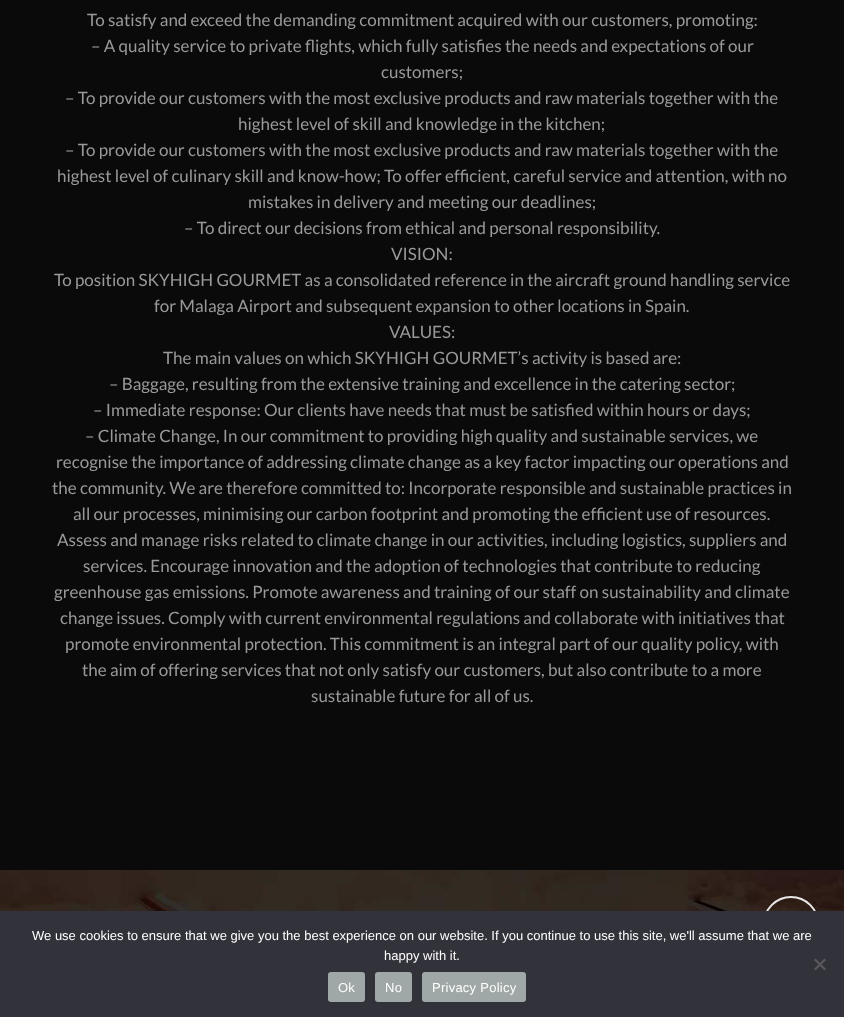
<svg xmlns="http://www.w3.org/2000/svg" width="844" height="1017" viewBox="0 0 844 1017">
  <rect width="100%" height="100%" fill="rgb(255,255,255)"/>
  <rect x="0" y="0" width="844" height="870" fill="rgb(10,10,10)"/>
  <g font-family="Lato" font-size="17" fill="rgb(153,153,153)">
    <text x="87" y="26">To satisfy and exceed the demanding commitment acquired with our customers, promoting:</text>
    <text x="91" y="52">– A quality service to private flights, which fully satisfies the needs and expectations of our</text>
    <text x="381" y="78">customers;</text>
    <text x="65" y="104">– To provide our customers with the most exclusive products and raw materials together with the</text>
    <text x="238" y="130">highest level of skill and knowledge in the kitchen;</text>
    <text x="65" y="156">– To provide our customers with the most exclusive products and raw materials together with the</text>
    <text x="57" y="182">highest level of culinary skill and know-how; To offer efficient, careful service and attention, with no</text>
    <text x="248" y="208">mistakes in delivery and meeting our deadlines;</text>
    <text x="184" y="234">– To direct our decisions from ethical and personal responsibility.</text>
    <text x="391" y="260">VISION:</text>
    <text x="54" y="286">To position SKYHIGH GOURMET as a consolidated reference in the aircraft ground handling service</text>
    <text x="154" y="312">for Malaga Airport and subsequent expansion to other locations in Spain.</text>
    <text x="389" y="338">VALUES:</text>
    <text x="163" y="364">The main values on which SKYHIGH GOURMET’s activity is based are:</text>
    <text x="109" y="390">– Baggage, resulting from the extensive training and excellence in the catering sector;</text>
    <text x="93" y="416">– Immediate response: Our clients have needs that must be satisfied within hours or days;</text>
    <text x="85" y="442">– Climate Change, In our commitment to providing high quality and sustainable services, we</text>
    <text x="56" y="468">recognise the importance of addressing climate change as a key factor impacting our operations and</text>
    <text x="52" y="494">the community. We are therefore committed to: Incorporate responsible and sustainable practices in</text>
    <text x="73" y="520">all our processes, minimising our carbon footprint and promoting the efficient use of resources.</text>
    <text x="57" y="546">Assess and manage risks related to climate change in our activities, including logistics, suppliers and</text>
    <text x="83" y="572">services. Encourage innovation and the adoption of technologies that contribute to reducing</text>
    <text x="54" y="598">greenhouse gas emissions. Promote awareness and training of our staff on sustainability and climate</text>
    <text x="60" y="624">change issues. Comply with current environmental regulations and collaborate with initiatives that</text>
    <text x="65" y="650">promote environmental protection. This commitment is an integral part of our quality policy, with</text>
    <text x="82" y="676">the aim of offering services that not only satisfy our customers, but also contribute to a more</text>
    <text x="311" y="702">sustainable future for all of us.</text>
  </g>
  <image x="0" y="870" width="844" height="41" href="pic1.png"/>
  <circle cx="791" cy="924" r="27" fill="none" stroke="rgb(232,232,232)" stroke-width="2"/>
  <rect x="0" y="911" width="844" height="106" fill="rgb(50,50,58)"/>
  <g font-family="Liberation Sans" font-size="13" fill="rgb(255,255,255)">
    <text x="32" y="940">We use cookies to ensure that we give you the best experience on our website. If you continue to use this site, we'll assume that we are</text>
    <text x="384" y="960">happy with it.</text>
  </g>
  <path d="M824.5 958.5L826 960L815.5 970.5L814 969Z" fill="rgb(89,89,93)"/>
  <path d="M814 960L815.5 958.5L826 969L824.5 970.5Z" fill="rgb(89,89,93)"/>
  <rect x="328" y="972" width="37" height="30" rx="3" fill="rgb(159,168,166)"/>
  <text x="338" y="992" font-family="Liberation Sans" font-size="13" letter-spacing="0.25" fill="rgb(255,255,255)">Ok</text>
  <rect x="375" y="972" width="37" height="30" rx="3" fill="rgb(159,168,166)"/>
  <text x="385" y="992" font-family="Liberation Sans" font-size="13" letter-spacing="0.25" fill="rgb(255,255,255)">No</text>
  <rect x="422" y="972" width="104" height="30" rx="3" fill="rgb(159,168,166)"/>
  <text x="432" y="992" font-family="Liberation Sans" font-size="13" letter-spacing="0.25" fill="rgb(255,255,255)">Privacy Policy</text>
</svg>
